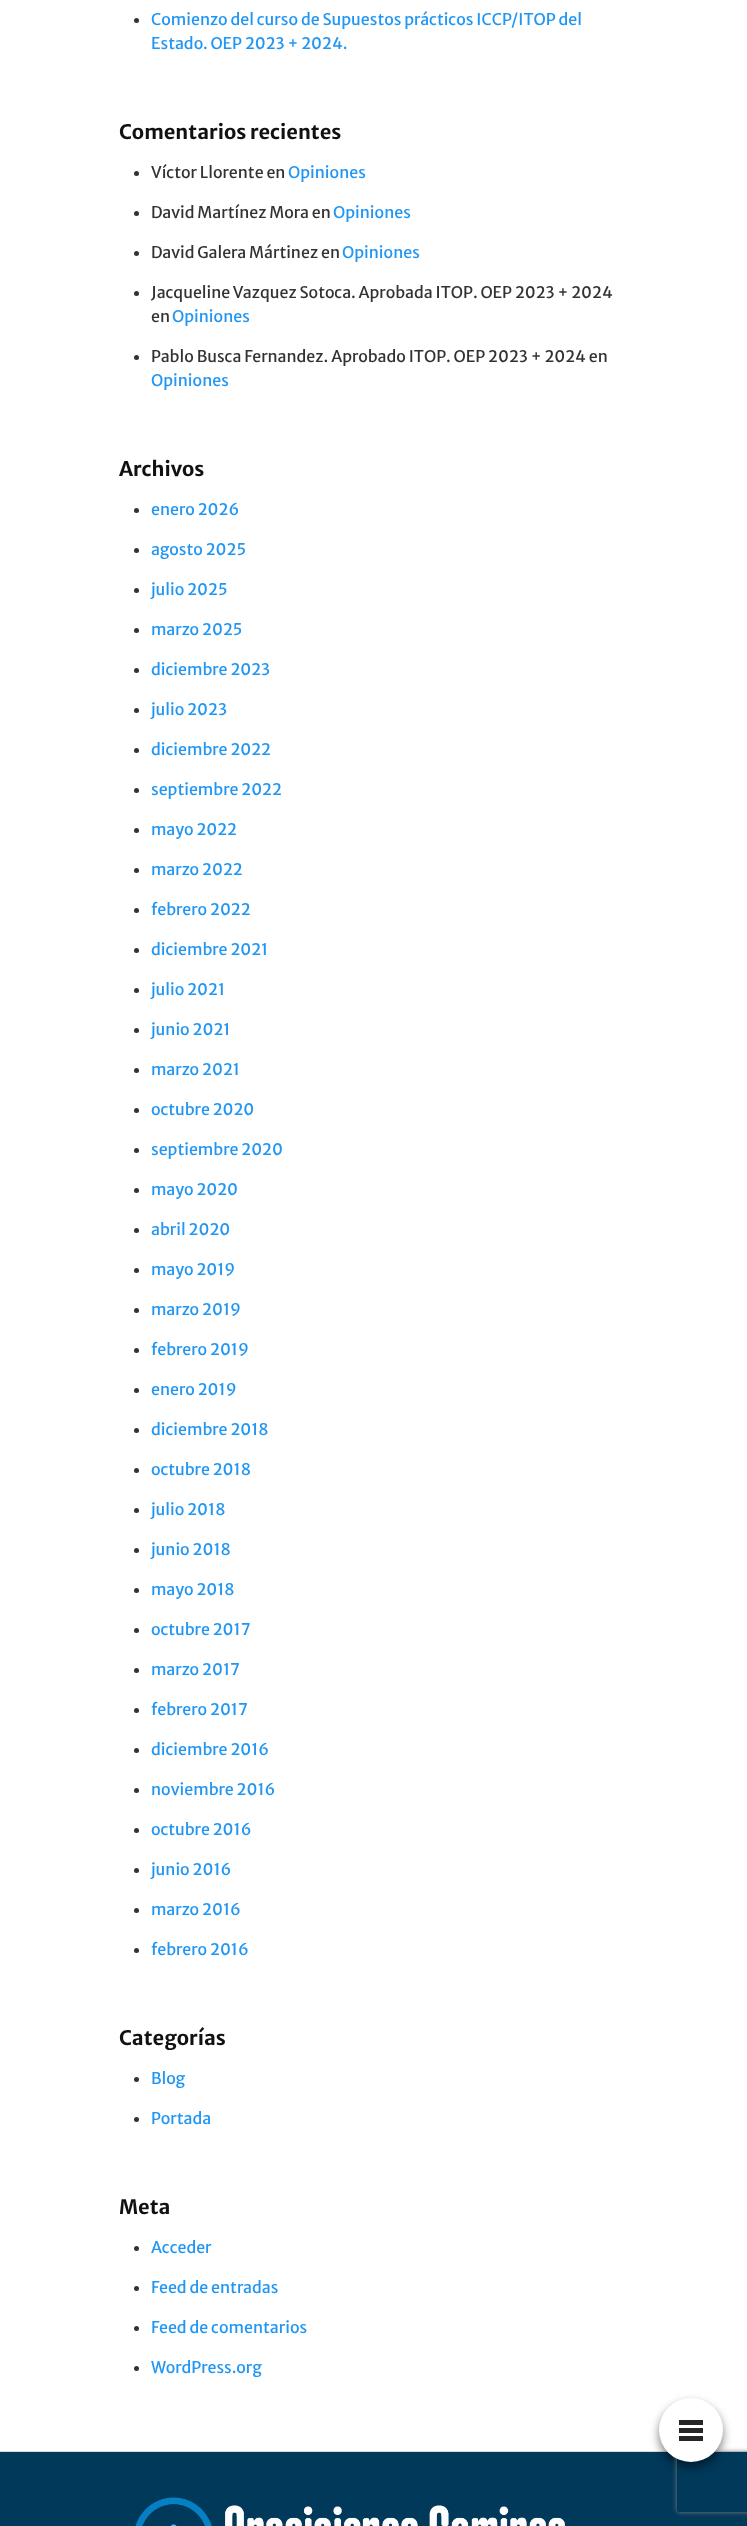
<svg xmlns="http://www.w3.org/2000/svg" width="747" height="2526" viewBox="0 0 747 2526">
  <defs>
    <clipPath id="clip1"><path d="M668 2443H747V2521H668ZM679 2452H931C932 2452 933 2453 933 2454V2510C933 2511 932 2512 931 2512H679C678 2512 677 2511 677 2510V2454C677 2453 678 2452 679 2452Z" clip-rule="evenodd"/></clipPath>
  </defs>
  <rect width="100%" height="100%" fill="rgb(255,255,255)"/>
  <circle cx="136.5" cy="20.5" r="2.5" fill="rgb(51,51,51)"/>
  <g font-family="Merriweather Sans" font-size="16" fill="rgb(33,150,243)">
    <text>
      <tspan x="151" y="25">Comienzo del curso de Supuestos prácticos ICCP/ITOP del</tspan>
      <tspan x="151" y="49">Estado. OEP 2023 + 2024.</tspan>
    </text>
  </g>
  <text x="119" y="139" font-family="Merriweather Sans" font-size="20" font-weight="bold" fill="rgb(17,17,17)">Comentarios recientes</text>
  <circle cx="136.5" cy="173.5" r="2.5" fill="rgb(51,51,51)"/>
  <text x="151" y="178" font-family="Merriweather Sans" font-size="16" fill="rgb(51,51,51)">Víctor Llorente en</text>
  <text x="288" y="178" font-family="Merriweather Sans" font-size="16" fill="rgb(33,150,243)">Opiniones</text>
  <circle cx="136.5" cy="213.5" r="2.5" fill="rgb(51,51,51)"/>
  <text x="151" y="218" font-family="Merriweather Sans" font-size="16" fill="rgb(51,51,51)">David Martínez Mora en</text>
  <text x="333" y="218" font-family="Merriweather Sans" font-size="16" fill="rgb(33,150,243)">Opiniones</text>
  <circle cx="136.5" cy="253.5" r="2.5" fill="rgb(51,51,51)"/>
  <text x="151" y="258" font-family="Merriweather Sans" font-size="16" fill="rgb(51,51,51)">David Galera Mártinez en</text>
  <text x="342" y="258" font-family="Merriweather Sans" font-size="16" fill="rgb(33,150,243)">Opiniones</text>
  <circle cx="136.5" cy="293.5" r="2.5" fill="rgb(51,51,51)"/>
  <g font-family="Merriweather Sans" font-size="16" fill="rgb(51,51,51)">
    <text>
      <tspan x="151" y="298">Jacqueline Vazquez Sotoca. Aprobada ITOP. OEP 2023 + 2024</tspan>
      <tspan x="151" y="322">en</tspan>
    </text>
  </g>
  <text x="172" y="322" font-family="Merriweather Sans" font-size="16" fill="rgb(33,150,243)">Opiniones</text>
  <circle cx="136.5" cy="357.5" r="2.5" fill="rgb(51,51,51)"/>
  <text x="151" y="362" font-family="Merriweather Sans" font-size="16" fill="rgb(51,51,51)">Pablo Busca Fernandez. Aprobado ITOP. OEP 2023 + 2024 en</text>
  <text x="151" y="386" font-family="Merriweather Sans" font-size="16" fill="rgb(33,150,243)">Opiniones</text>
  <text x="119" y="476" font-family="Merriweather Sans" font-size="20" font-weight="bold" fill="rgb(17,17,17)">Archivos</text>
  <circle cx="136.5" cy="510.5" r="2.5" fill="rgb(51,51,51)"/>
  <text x="151" y="515" font-family="Merriweather Sans" font-size="16" fill="rgb(33,150,243)">enero 2026</text>
  <circle cx="136.5" cy="550.5" r="2.5" fill="rgb(51,51,51)"/>
  <text x="151" y="555" font-family="Merriweather Sans" font-size="16" fill="rgb(33,150,243)">agosto 2025</text>
  <circle cx="136.5" cy="590.5" r="2.5" fill="rgb(51,51,51)"/>
  <text x="151" y="595" font-family="Merriweather Sans" font-size="16" fill="rgb(33,150,243)">julio 2025</text>
  <circle cx="136.5" cy="630.5" r="2.5" fill="rgb(51,51,51)"/>
  <text x="151" y="635" font-family="Merriweather Sans" font-size="16" fill="rgb(33,150,243)">marzo 2025</text>
  <circle cx="136.5" cy="670.5" r="2.5" fill="rgb(51,51,51)"/>
  <text x="151" y="675" font-family="Merriweather Sans" font-size="16" fill="rgb(33,150,243)">diciembre 2023</text>
  <circle cx="136.5" cy="710.5" r="2.5" fill="rgb(51,51,51)"/>
  <text x="151" y="715" font-family="Merriweather Sans" font-size="16" fill="rgb(33,150,243)">julio 2023</text>
  <circle cx="136.5" cy="750.5" r="2.5" fill="rgb(51,51,51)"/>
  <text x="151" y="755" font-family="Merriweather Sans" font-size="16" fill="rgb(33,150,243)">diciembre 2022</text>
  <circle cx="136.5" cy="790.5" r="2.5" fill="rgb(51,51,51)"/>
  <text x="151" y="795" font-family="Merriweather Sans" font-size="16" fill="rgb(33,150,243)">septiembre 2022</text>
  <circle cx="136.5" cy="830.5" r="2.5" fill="rgb(51,51,51)"/>
  <text x="151" y="835" font-family="Merriweather Sans" font-size="16" fill="rgb(33,150,243)">mayo 2022</text>
  <circle cx="136.5" cy="870.5" r="2.5" fill="rgb(51,51,51)"/>
  <text x="151" y="875" font-family="Merriweather Sans" font-size="16" fill="rgb(33,150,243)">marzo 2022</text>
  <circle cx="136.5" cy="910.5" r="2.5" fill="rgb(51,51,51)"/>
  <text x="151" y="915" font-family="Merriweather Sans" font-size="16" fill="rgb(33,150,243)">febrero 2022</text>
  <circle cx="136.5" cy="950.5" r="2.5" fill="rgb(51,51,51)"/>
  <text x="151" y="955" font-family="Merriweather Sans" font-size="16" fill="rgb(33,150,243)">diciembre 2021</text>
  <circle cx="136.5" cy="990.5" r="2.5" fill="rgb(51,51,51)"/>
  <text x="151" y="995" font-family="Merriweather Sans" font-size="16" fill="rgb(33,150,243)">julio 2021</text>
  <circle cx="136.5" cy="1030.5" r="2.5" fill="rgb(51,51,51)"/>
  <text x="151" y="1035" font-family="Merriweather Sans" font-size="16" fill="rgb(33,150,243)">junio 2021</text>
  <circle cx="136.5" cy="1070.5" r="2.5" fill="rgb(51,51,51)"/>
  <text x="151" y="1075" font-family="Merriweather Sans" font-size="16" fill="rgb(33,150,243)">marzo 2021</text>
  <circle cx="136.5" cy="1110.5" r="2.5" fill="rgb(51,51,51)"/>
  <text x="151" y="1115" font-family="Merriweather Sans" font-size="16" fill="rgb(33,150,243)">octubre 2020</text>
  <circle cx="136.5" cy="1150.5" r="2.5" fill="rgb(51,51,51)"/>
  <text x="151" y="1155" font-family="Merriweather Sans" font-size="16" fill="rgb(33,150,243)">septiembre 2020</text>
  <circle cx="136.5" cy="1190.5" r="2.5" fill="rgb(51,51,51)"/>
  <text x="151" y="1195" font-family="Merriweather Sans" font-size="16" fill="rgb(33,150,243)">mayo 2020</text>
  <circle cx="136.5" cy="1230.5" r="2.5" fill="rgb(51,51,51)"/>
  <text x="151" y="1235" font-family="Merriweather Sans" font-size="16" fill="rgb(33,150,243)">abril 2020</text>
  <circle cx="136.5" cy="1270.5" r="2.5" fill="rgb(51,51,51)"/>
  <text x="151" y="1275" font-family="Merriweather Sans" font-size="16" fill="rgb(33,150,243)">mayo 2019</text>
  <circle cx="136.5" cy="1310.5" r="2.5" fill="rgb(51,51,51)"/>
  <text x="151" y="1315" font-family="Merriweather Sans" font-size="16" fill="rgb(33,150,243)">marzo 2019</text>
  <circle cx="136.5" cy="1350.5" r="2.5" fill="rgb(51,51,51)"/>
  <text x="151" y="1355" font-family="Merriweather Sans" font-size="16" fill="rgb(33,150,243)">febrero 2019</text>
  <circle cx="136.5" cy="1390.5" r="2.5" fill="rgb(51,51,51)"/>
  <text x="151" y="1395" font-family="Merriweather Sans" font-size="16" fill="rgb(33,150,243)">enero 2019</text>
  <circle cx="136.5" cy="1430.5" r="2.5" fill="rgb(51,51,51)"/>
  <text x="151" y="1435" font-family="Merriweather Sans" font-size="16" fill="rgb(33,150,243)">diciembre 2018</text>
  <circle cx="136.5" cy="1470.5" r="2.5" fill="rgb(51,51,51)"/>
  <text x="151" y="1475" font-family="Merriweather Sans" font-size="16" fill="rgb(33,150,243)">octubre 2018</text>
  <circle cx="136.5" cy="1510.5" r="2.5" fill="rgb(51,51,51)"/>
  <text x="151" y="1515" font-family="Merriweather Sans" font-size="16" fill="rgb(33,150,243)">julio 2018</text>
  <circle cx="136.5" cy="1550.5" r="2.5" fill="rgb(51,51,51)"/>
  <text x="151" y="1555" font-family="Merriweather Sans" font-size="16" fill="rgb(33,150,243)">junio 2018</text>
  <circle cx="136.5" cy="1590.5" r="2.5" fill="rgb(51,51,51)"/>
  <text x="151" y="1595" font-family="Merriweather Sans" font-size="16" fill="rgb(33,150,243)">mayo 2018</text>
  <circle cx="136.5" cy="1630.5" r="2.5" fill="rgb(51,51,51)"/>
  <text x="151" y="1635" font-family="Merriweather Sans" font-size="16" fill="rgb(33,150,243)">octubre 2017</text>
  <circle cx="136.5" cy="1670.5" r="2.5" fill="rgb(51,51,51)"/>
  <text x="151" y="1675" font-family="Merriweather Sans" font-size="16" fill="rgb(33,150,243)">marzo 2017</text>
  <circle cx="136.5" cy="1710.5" r="2.5" fill="rgb(51,51,51)"/>
  <text x="151" y="1715" font-family="Merriweather Sans" font-size="16" fill="rgb(33,150,243)">febrero 2017</text>
  <circle cx="136.5" cy="1750.5" r="2.5" fill="rgb(51,51,51)"/>
  <text x="151" y="1755" font-family="Merriweather Sans" font-size="16" fill="rgb(33,150,243)">diciembre 2016</text>
  <circle cx="136.5" cy="1790.5" r="2.5" fill="rgb(51,51,51)"/>
  <text x="151" y="1795" font-family="Merriweather Sans" font-size="16" fill="rgb(33,150,243)">noviembre 2016</text>
  <circle cx="136.5" cy="1830.5" r="2.5" fill="rgb(51,51,51)"/>
  <text x="151" y="1835" font-family="Merriweather Sans" font-size="16" fill="rgb(33,150,243)">octubre 2016</text>
  <circle cx="136.5" cy="1870.5" r="2.5" fill="rgb(51,51,51)"/>
  <text x="151" y="1875" font-family="Merriweather Sans" font-size="16" fill="rgb(33,150,243)">junio 2016</text>
  <circle cx="136.5" cy="1910.5" r="2.5" fill="rgb(51,51,51)"/>
  <text x="151" y="1915" font-family="Merriweather Sans" font-size="16" fill="rgb(33,150,243)">marzo 2016</text>
  <circle cx="136.5" cy="1950.5" r="2.5" fill="rgb(51,51,51)"/>
  <text x="151" y="1955" font-family="Merriweather Sans" font-size="16" fill="rgb(33,150,243)">febrero 2016</text>
  <text x="119" y="2045" font-family="Merriweather Sans" font-size="20" font-weight="bold" fill="rgb(17,17,17)">Categorías</text>
  <circle cx="136.5" cy="2079.5" r="2.5" fill="rgb(51,51,51)"/>
  <text x="151" y="2084" font-family="Merriweather Sans" font-size="16" fill="rgb(33,150,243)">Blog</text>
  <circle cx="136.5" cy="2119.5" r="2.5" fill="rgb(51,51,51)"/>
  <text x="151" y="2124" font-family="Merriweather Sans" font-size="16" fill="rgb(33,150,243)">Portada</text>
  <text x="119" y="2214" font-family="Merriweather Sans" font-size="20" font-weight="bold" fill="rgb(17,17,17)">Meta</text>
  <circle cx="136.5" cy="2248.5" r="2.5" fill="rgb(51,51,51)"/>
  <text x="151" y="2253" font-family="Merriweather Sans" font-size="16" fill="rgb(33,150,243)">Acceder</text>
  <circle cx="136.5" cy="2288.5" r="2.5" fill="rgb(51,51,51)"/>
  <text x="151" y="2293" font-family="Merriweather Sans" font-size="16" fill="rgb(33,150,243)">Feed de entradas</text>
  <circle cx="136.5" cy="2328.5" r="2.5" fill="rgb(51,51,51)"/>
  <text x="151" y="2333" font-family="Merriweather Sans" font-size="16" fill="rgb(33,150,243)">Feed de comentarios</text>
  <circle cx="136.5" cy="2368.5" r="2.5" fill="rgb(51,51,51)"/>
  <text x="151" y="2373" font-family="Merriweather Sans" font-size="16" fill="rgb(33,150,243)">WordPress.org</text>
  <rect x="0" y="2452" width="747" height="74" fill="rgb(1,57,90)"/>
  <rect x="0" y="2451" width="747" height="1" fill="rgb(219,219,219)"/>
  <rect x="659" y="2403" width="64" height="64" rx="32" fill="rgba(0,0,0,0.5)" filter="blur(5px)"/>
  <g clip-path="url(#clip1)">
    <rect x="677" y="2452" width="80" height="60" rx="2" fill="rgb(128,128,128)" filter="blur(2.5px)"/>
  </g>
  <circle cx="691" cy="2430" r="32" fill="rgb(255,255,255)"/>
  <rect x="679" y="2428" width="24" height="5" fill="rgb(37,37,37)"/>
  <rect x="679" y="2420" width="24" height="5" fill="rgb(37,37,37)"/>
  <rect x="679" y="2436" width="24" height="5" fill="rgb(37,37,37)"/>
  <image x="135" y="2497" width="430" height="29" href="pic1.png"/>
</svg>
